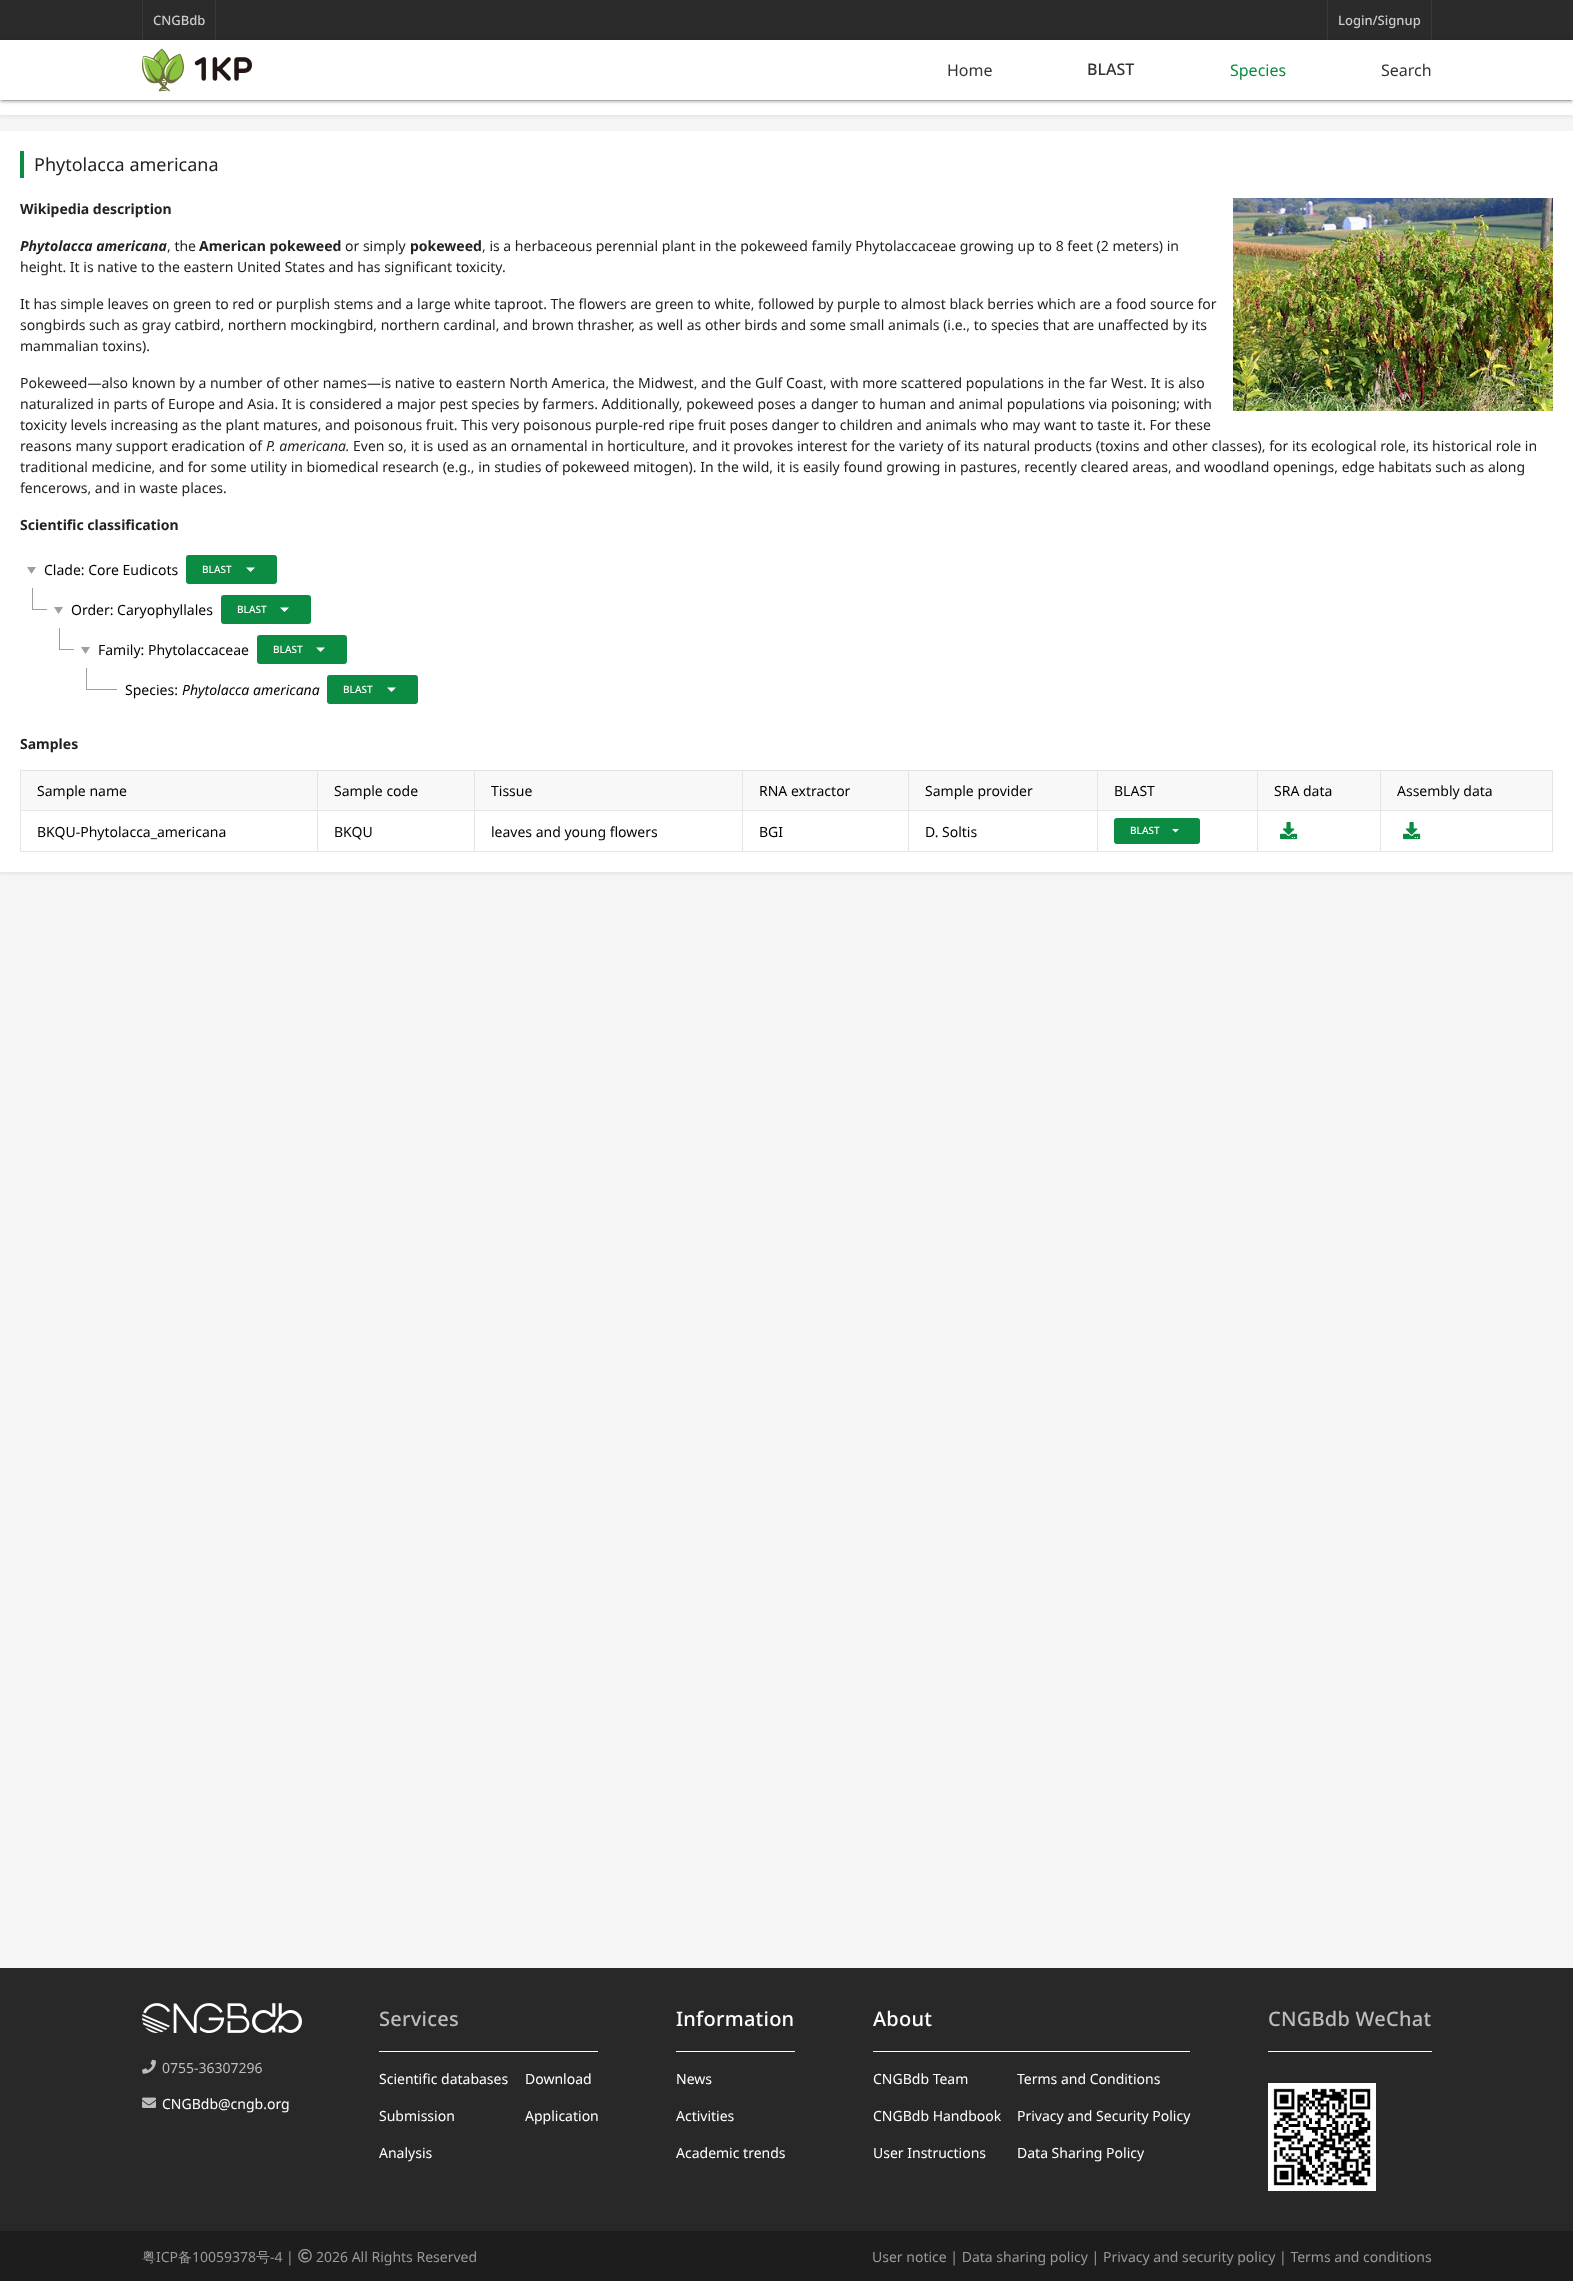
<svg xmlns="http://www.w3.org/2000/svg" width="1573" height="2281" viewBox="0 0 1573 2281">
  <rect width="100%" height="100%" fill="rgb(245,245,245)"/>
  <rect x="0" y="0" width="1573" height="40" fill="rgb(43,43,43)"/>
  <rect x="0" y="76" width="1573" height="41" fill="rgb(229,229,229)" filter="blur(1.5px)"/>
  <rect x="0" y="100" width="1573" height="15" fill="rgb(255,255,255)"/>
  <rect x="0" y="42" width="1573" height="60" fill="rgba(0,0,0,0.14)" filter="blur(1px)"/>
  <rect x="0" y="41" width="1573" height="60" fill="rgba(0,0,0,0.2)" filter="blur(2.5px)"/>
  <rect x="142" y="0" width="1" height="40" fill="rgb(57,57,57)"/>
  <text x="153" y="25" font-family="Noto Sans" font-size="13" font-weight="500" fill="rgb(204,204,204)">CNGBdb</text>
  <rect x="215" y="0" width="1" height="40" fill="rgb(57,57,57)"/>
  <rect x="1327" y="0" width="1" height="40" fill="rgb(57,57,57)"/>
  <text x="1338" y="25" font-family="Noto Sans" font-size="13" font-weight="500" fill="rgb(204,204,204)">Login/Signup</text>
  <rect x="1431" y="0" width="1" height="40" fill="rgb(57,57,57)"/>
  <rect x="2" y="45" width="1569" height="56" fill="rgba(0,0,0,0.12)" filter="blur(0.5px)"/>
  <rect x="0" y="40" width="1573" height="60" fill="rgb(255,255,255)"/>
  <image x="142" y="48" width="110" height="44" href="pic1.png"/>
  <text x="947" y="76" font-family="Noto Sans" font-size="16" fill="rgb(51,51,51)">Home</text>
  <text x="1087" y="75" font-family="Noto Sans" font-size="16" font-weight="500" fill="rgb(51,51,51)">BLAST</text>
  <text x="1230" y="76" font-family="Noto Sans" font-size="16" fill="rgb(12,140,66)">Species</text>
  <text x="1381" y="76" font-family="Noto Sans" font-size="16" fill="rgb(51,51,51)">Search</text>
  <rect x="0" y="133" width="1573" height="741" fill="rgb(229,229,229)" filter="blur(1.5px)"/>
  <rect x="0" y="131" width="1573" height="741" fill="rgb(255,255,255)"/>
  <rect x="20" y="151" width="4" height="27" fill="rgb(12,140,66)"/>
  <text x="34" y="171" font-family="Noto Sans" font-size="18" fill="rgb(34,34,34)">Phytolacca americana</text>
  <text x="20" y="214" font-family="Noto Sans" font-size="14" font-weight="bold" fill="rgb(34,34,34)">Wikipedia description</text>
  <image x="1233" y="198" width="320" height="213" href="pic2.png"/>
  <text x="20" y="251" font-family="Noto Sans" font-size="14" font-weight="bold" font-style="italic" fill="rgb(34,34,34)">Phytolacca americana</text>
  <text x="167" y="251" font-family="Noto Sans" font-size="14" fill="rgb(34,34,34)">, the</text>
  <text x="199" y="251" font-family="Noto Sans" font-size="14" font-weight="bold" fill="rgb(34,34,34)">American pokeweed</text>
  <text x="345" y="251" font-family="Noto Sans" font-size="14" fill="rgb(34,34,34)">or simply</text>
  <text x="410" y="251" font-family="Noto Sans" font-size="14" font-weight="bold" fill="rgb(34,34,34)">pokeweed</text>
  <g font-family="Noto Sans" font-size="14" fill="rgb(34,34,34)">
    <text x="482" y="251">, is a herbaceous perennial plant in the pokeweed family Phytolaccaceae growing up to 8 feet (2 meters) in</text>
    <text x="20" y="272">height. It is native to the eastern United States and has significant toxicity.</text>
    <text>
      <tspan x="20" y="309">It has simple leaves on green to red or purplish stems and a large white taproot. The flowers are green to white, followed by purple to almost black berries which are a food source for</tspan>
      <tspan x="20" y="330">songbirds such as gray catbird, northern mockingbird, northern cardinal, and brown thrasher, as well as other birds and some small animals (i.e., to species that are unaffected by its</tspan>
      <tspan x="20" y="351">mammalian toxins).</tspan>
    </text>
    <text>
      <tspan x="20" y="388">Pokeweed—also known by a number of other names—is native to eastern North America, the Midwest, and the Gulf Coast, with more scattered populations in the far West. It is also</tspan>
      <tspan x="20" y="409">naturalized in parts of Europe and Asia. It is considered a major pest species by farmers. Additionally, pokeweed poses a danger to human and animal populations via poisoning; with</tspan>
      <tspan x="20" y="430">toxicity levels increasing as the plant matures, and poisonous fruit. This very poisonous purple-red ripe fruit poses danger to children and animals who may want to taste it. For these</tspan>
      <tspan x="20" y="451">reasons many support eradication of</tspan>
    </text>
  </g>
  <text x="266" y="451" font-family="Noto Sans" font-size="14" font-style="italic" fill="rgb(34,34,34)">P. americana.</text>
  <g font-family="Noto Sans" font-size="14" fill="rgb(34,34,34)">
    <text x="353" y="451">Even so, it is used as an ornamental in horticulture, and it provokes interest for the variety of its natural products (toxins and other classes), for its ecological role, its historical role in</text>
    <text>
      <tspan x="20" y="472">traditional medicine, and for some utility in biomedical research (e.g., in studies of pokeweed mitogen). In the wild, it is easily found growing in pastures, recently cleared areas, and woodland openings, edge habitats such as along</tspan>
      <tspan x="20" y="493">fencerows, and in waste places.</tspan>
    </text>
  </g>
  <text x="20" y="530" font-family="Noto Sans" font-size="14" font-weight="bold" fill="rgb(34,34,34)">Scientific classification</text>
  <path d="M36 567L31.5 574L27 567Z" fill="rgb(158,158,158)"/>
  <text x="44" y="575" font-family="Noto Sans" font-size="14" fill="rgb(0,0,0)">Clade: Core Eudicots</text>
  <rect x="186" y="555" width="91" height="29" rx="3" fill="rgb(12,140,66)"/>
  <text x="202" y="573" font-family="Noto Sans" font-size="10" font-weight="500" fill="rgb(255,255,255)">BLAST</text>
  <path d="M246 567.5H255L250.5 572Z" fill="rgb(255,255,255)"/>
  <rect x="32" y="609" width="15" height="1" fill="rgb(158,158,158)"/>
  <rect x="32" y="588" width="1" height="22" fill="rgb(158,158,158)"/>
  <path d="M63 607L58.5 614L54 607Z" fill="rgb(158,158,158)"/>
  <text x="71" y="615" font-family="Noto Sans" font-size="14" fill="rgb(0,0,0)">Order: Caryophyllales</text>
  <rect x="221" y="595" width="90" height="29" rx="3" fill="rgb(12,140,66)"/>
  <text x="237" y="613" font-family="Noto Sans" font-size="10" font-weight="500" fill="rgb(255,255,255)">BLAST</text>
  <path d="M280 607.5H289L284.5 612Z" fill="rgb(255,255,255)"/>
  <rect x="59" y="649" width="15" height="1" fill="rgb(158,158,158)"/>
  <rect x="59" y="628" width="1" height="22" fill="rgb(158,158,158)"/>
  <path d="M90 647L85.5 654L81 647Z" fill="rgb(158,158,158)"/>
  <text x="98" y="655" font-family="Noto Sans" font-size="14" fill="rgb(0,0,0)">Family: Phytolaccaceae</text>
  <rect x="257" y="635" width="90" height="29" rx="3" fill="rgb(12,140,66)"/>
  <text x="273" y="653" font-family="Noto Sans" font-size="10" font-weight="500" fill="rgb(255,255,255)">BLAST</text>
  <path d="M316 647.5H325L320.5 652Z" fill="rgb(255,255,255)"/>
  <rect x="86" y="689" width="31" height="1" fill="rgb(158,158,158)"/>
  <rect x="86" y="668" width="1" height="22" fill="rgb(158,158,158)"/>
  <text x="125" y="695" font-family="Noto Sans" font-size="14" fill="rgb(0,0,0)">Species:</text>
  <text x="182" y="695" font-family="Noto Sans" font-size="14" font-style="italic" fill="rgb(0,0,0)">Phytolacca americana</text>
  <rect x="327" y="675" width="91" height="29" rx="3" fill="rgb(12,140,66)"/>
  <text x="343" y="693" font-family="Noto Sans" font-size="10" font-weight="500" fill="rgb(255,255,255)">BLAST</text>
  <path d="M387 687.5H396L391.5 692Z" fill="rgb(255,255,255)"/>
  <text x="20" y="749" font-family="Noto Sans" font-size="14" font-weight="bold" fill="rgb(34,34,34)">Samples</text>
  <rect x="20.5" y="770.5" width="1532" height="81" fill="none" stroke="rgb(229,229,229)"/>
  <rect x="21" y="771" width="1531" height="39" fill="rgb(248,248,248)"/>
  <rect x="21" y="810" width="1531" height="1" fill="rgb(229,229,229)"/>
  <text x="37" y="796" font-family="Noto Sans" font-size="14" fill="rgb(0,0,0)">Sample name</text>
  <rect x="317" y="771" width="1" height="80" fill="rgb(229,229,229)"/>
  <text x="334" y="796" font-family="Noto Sans" font-size="14" fill="rgb(0,0,0)">Sample code</text>
  <rect x="474" y="771" width="1" height="80" fill="rgb(229,229,229)"/>
  <text x="491" y="796" font-family="Noto Sans" font-size="14" fill="rgb(0,0,0)">Tissue</text>
  <rect x="742" y="771" width="1" height="80" fill="rgb(229,229,229)"/>
  <text x="759" y="796" font-family="Noto Sans" font-size="14" fill="rgb(0,0,0)">RNA extractor</text>
  <rect x="908" y="771" width="1" height="80" fill="rgb(229,229,229)"/>
  <text x="925" y="796" font-family="Noto Sans" font-size="14" fill="rgb(0,0,0)">Sample provider</text>
  <rect x="1097" y="771" width="1" height="80" fill="rgb(229,229,229)"/>
  <text x="1114" y="796" font-family="Noto Sans" font-size="14" fill="rgb(0,0,0)">BLAST</text>
  <rect x="1257" y="771" width="1" height="80" fill="rgb(229,229,229)"/>
  <text x="1274" y="796" font-family="Noto Sans" font-size="14" fill="rgb(0,0,0)">SRA data</text>
  <rect x="1380" y="771" width="1" height="80" fill="rgb(229,229,229)"/>
  <g font-family="Noto Sans" font-size="14" fill="rgb(0,0,0)">
    <text x="1397" y="796">Assembly data</text>
    <text x="37" y="837">BKQU-Phytolacca_americana</text>
    <text x="334" y="837">BKQU</text>
    <text x="491" y="837">leaves and young flowers</text>
    <text x="759" y="837">BGI</text>
    <text x="925" y="837">D. Soltis</text>
  </g>
  <rect x="1114" y="818" width="86" height="26" rx="3" fill="rgb(12,140,66)"/>
  <text x="1130" y="834" font-family="Noto Sans" font-size="10" font-weight="500" fill="rgb(255,255,255)">BLAST</text>
  <path d="M1172 829H1179L1175.5 832.5Z" fill="rgb(255,255,255)"/>
  <image x="1280" y="822" width="18" height="18" href="pic3.png"/>
  <image x="1403" y="822" width="18" height="18" href="pic3.png"/>
  <rect x="0" y="1968" width="1573" height="263" fill="rgb(40,40,40)"/>
  <image x="142" y="2003" width="160" height="30" href="pic4.png"/>
  <image x="142" y="2059" width="14" height="15" href="pic5.png"/>
  <text x="162" y="2073" font-family="Noto Sans" font-size="14" fill="rgb(189,189,189)">0755-36307296</text>
  <image x="142" y="2097" width="14" height="11" href="pic6.png"/>
  <text x="162" y="2109" font-family="Noto Sans" font-size="14" fill="rgb(255,255,255)">CNGBdb@cngb.org</text>
  <text x="379" y="2026" font-family="Noto Sans" font-size="20" font-weight="500" letter-spacing="0.25" fill="rgb(189,189,189)">Services</text>
  <rect x="379" y="2051" width="219" height="1" fill="rgb(255,255,255)"/>
  <g font-family="Noto Sans" font-size="14" fill="rgb(255,255,255)">
    <text x="379" y="2084">Scientific databases</text>
    <text x="379" y="2121">Submission</text>
    <text x="379" y="2158">Analysis</text>
    <text x="525" y="2084">Download</text>
    <text x="525" y="2121">Application</text>
  </g>
  <text x="676" y="2026" font-family="Noto Sans" font-size="20" font-weight="500" letter-spacing="0.25" fill="rgb(255,255,255)">Information</text>
  <rect x="676" y="2051" width="119" height="1" fill="rgb(255,255,255)"/>
  <g font-family="Noto Sans" font-size="14" fill="rgb(255,255,255)">
    <text x="676" y="2084">News</text>
    <text x="676" y="2121">Activities</text>
    <text x="676" y="2158">Academic trends</text>
  </g>
  <text x="873" y="2026" font-family="Noto Sans" font-size="20" font-weight="500" letter-spacing="0.25" fill="rgb(255,255,255)">About</text>
  <rect x="873" y="2051" width="317" height="1" fill="rgb(255,255,255)"/>
  <g font-family="Noto Sans" font-size="14" fill="rgb(255,255,255)">
    <text x="873" y="2084">CNGBdb Team</text>
    <text x="873" y="2121">CNGBdb Handbook</text>
    <text x="873" y="2158">User Instructions</text>
    <text x="1017" y="2084">Terms and Conditions</text>
    <text x="1017" y="2121">Privacy and Security Policy</text>
    <text x="1017" y="2158">Data Sharing Policy</text>
  </g>
  <text x="1268" y="2026" font-family="Noto Sans" font-size="20" font-weight="500" letter-spacing="0.25" fill="rgb(189,189,189)">CNGBdb WeChat</text>
  <rect x="1268" y="2051" width="164" height="1" fill="rgb(255,255,255)"/>
  <image x="1268" y="2083" width="108" height="108" href="pic7.png"/>
  <rect x="0" y="2231" width="1573" height="50" fill="rgb(29,29,29)"/>
  <text x="142" y="2262" font-family="WenQuanYi Zen Hei" font-size="14" font-weight="500" fill="rgb(153,153,153)">粤</text>
  <text x="156" y="2262" font-family="Noto Sans" font-size="14" fill="rgb(153,153,153)">ICP</text>
  <text x="178" y="2262" font-family="WenQuanYi Zen Hei" font-size="14" font-weight="500" fill="rgb(153,153,153)">备</text>
  <text x="192" y="2262" font-family="Noto Sans" font-size="14" fill="rgb(153,153,153)">10059378</text>
  <text x="256" y="2262" font-family="WenQuanYi Zen Hei" font-size="14" font-weight="500" fill="rgb(153,153,153)">号</text>
  <g font-family="Noto Sans" font-size="14" fill="rgb(153,153,153)">
    <text x="270" y="2262">-4</text>
    <text x="286" y="2262">|</text>
  </g>
  <image x="298" y="2249" width="14" height="14" href="pic8.png"/>
  <g font-family="Noto Sans" font-size="14" fill="rgb(153,153,153)">
    <text x="316" y="2262">2026 All Rights Reserved</text>
    <text x="872" y="2262">User notice | Data sharing policy | Privacy and security policy | Terms and conditions</text>
  </g>
</svg>
